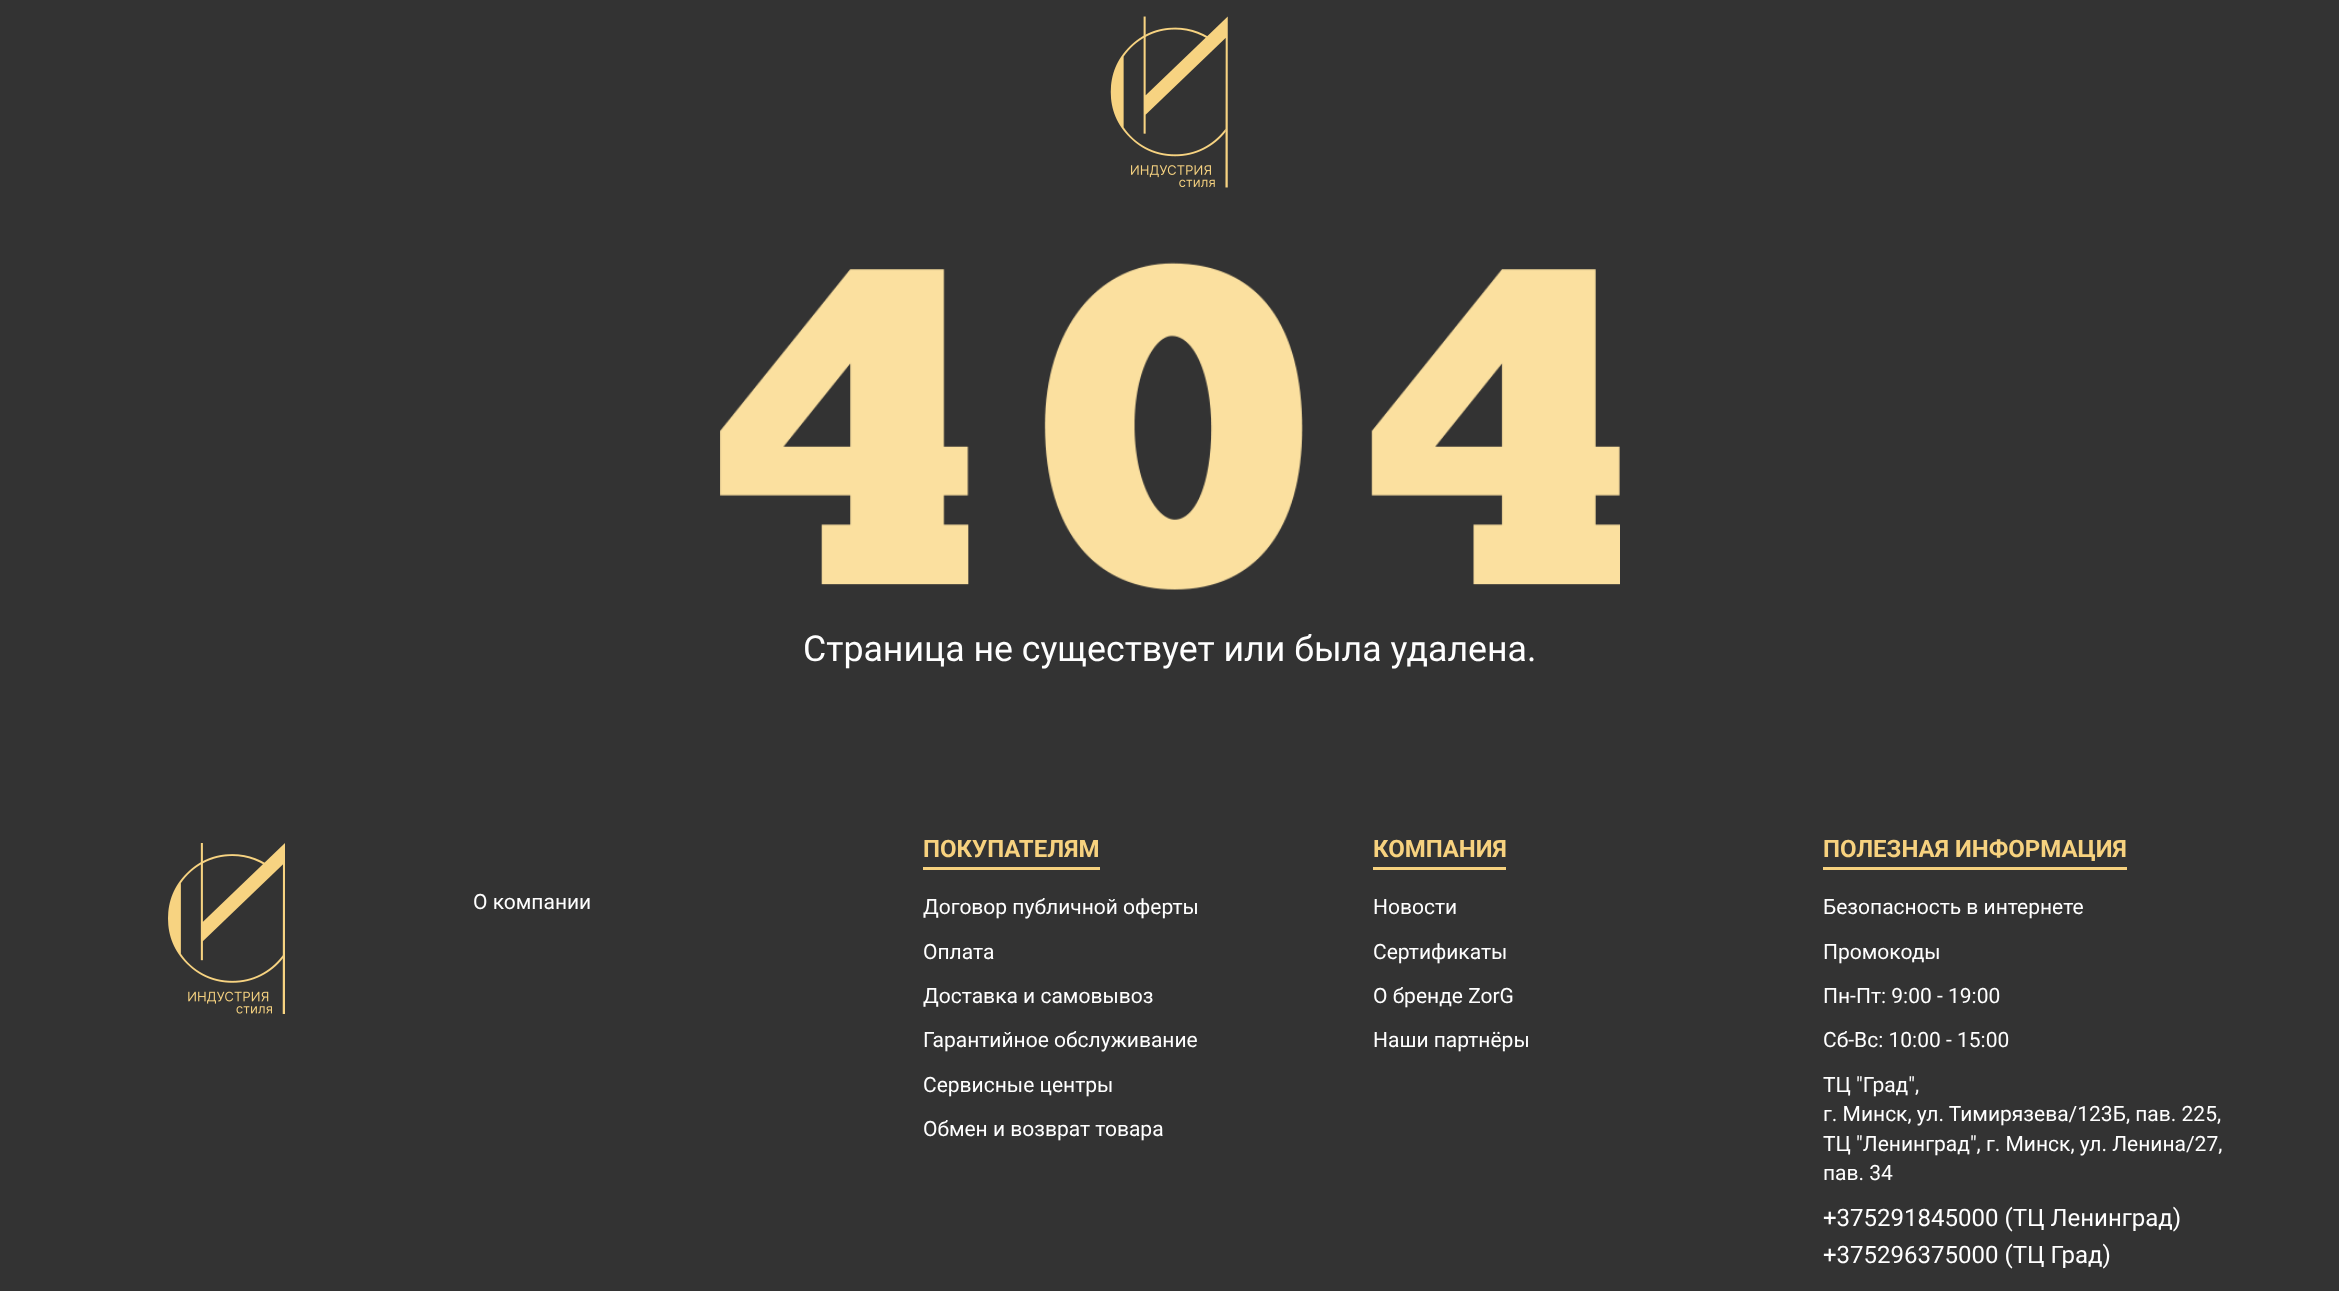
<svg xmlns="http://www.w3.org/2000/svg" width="2339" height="1291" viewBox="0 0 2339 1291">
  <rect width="100%" height="100%" fill="rgb(51,51,51)"/>
  <image x="1110" y="16" width="118" height="172" href="pic1.png"/>
  <image x="720" y="262" width="900" height="328" href="pic2.png"/>
  <text x="803" y="661" font-family="Roboto" font-size="35.7" fill="rgb(255,255,255)">Страница не существует или была удалена.</text>
  <image x="168" y="843" width="117" height="171" href="pic3.png"/>
  <text x="473" y="909" font-family="Roboto" font-size="21" fill="rgb(255,255,255)">О компании</text>
  <text x="923" y="857" font-family="Roboto" font-size="24" font-weight="bold" fill="rgb(247,210,127)">ПОКУПАТЕЛЯМ</text>
  <rect x="923" y="867" width="177" height="3" fill="rgb(247,210,127)"/>
  <g font-family="Roboto" font-size="21" fill="rgb(255,255,255)">
    <text x="923" y="914">Договор публичной оферты</text>
    <text x="923" y="959">Оплата</text>
    <text x="923" y="1003">Доставка и самовывоз</text>
    <text x="923" y="1047">Гарантийное обслуживание</text>
    <text x="923" y="1092">Сервисные центры</text>
    <text x="923" y="1136">Обмен и возврат товара</text>
  </g>
  <text x="1373" y="857" font-family="Roboto" font-size="24" font-weight="bold" fill="rgb(247,210,127)">КОМПАНИЯ</text>
  <rect x="1373" y="867" width="133" height="3" fill="rgb(247,210,127)"/>
  <g font-family="Roboto" font-size="21" fill="rgb(255,255,255)">
    <text x="1373" y="914">Новости</text>
    <text x="1373" y="959">Сертификаты</text>
    <text x="1373" y="1003">О бренде ZorG</text>
    <text x="1373" y="1047">Наши партнёры</text>
  </g>
  <text x="1823" y="857" font-family="Roboto" font-size="24" font-weight="bold" fill="rgb(247,210,127)">ПОЛЕЗНАЯ ИНФОРМАЦИЯ</text>
  <rect x="1823" y="867" width="304" height="3" fill="rgb(247,210,127)"/>
  <g font-family="Roboto" font-size="21" fill="rgb(255,255,255)">
    <text x="1823" y="914">Безопасность в интернете</text>
    <text x="1823" y="959">Промокоды</text>
    <text x="1823" y="1003">Пн-Пт: 9:00 - 19:00</text>
    <text x="1823" y="1047">Сб-Вс: 10:00 - 15:00</text>
    <text>
      <tspan x="1823" y="1092">ТЦ "Град",</tspan>
      <tspan x="1823" y="1121">г. Минск, ул. Тимирязева/123Б, пав. 225,</tspan>
      <tspan x="1823" y="1151">ТЦ "Ленинград", г. Минск, ул. Ленина/27,</tspan>
      <tspan x="1823" y="1180">пав. 34</tspan>
    </text>
  </g>
  <g font-family="Roboto" font-size="24" fill="rgb(255,255,255)">
    <text>
      <tspan x="1823" y="1226">+375291845000 (ТЦ Ленинград)</tspan>
      <tspan x="1823" y="1263">+375296375000 (ТЦ Град)</tspan>
    </text>
  </g>
</svg>
